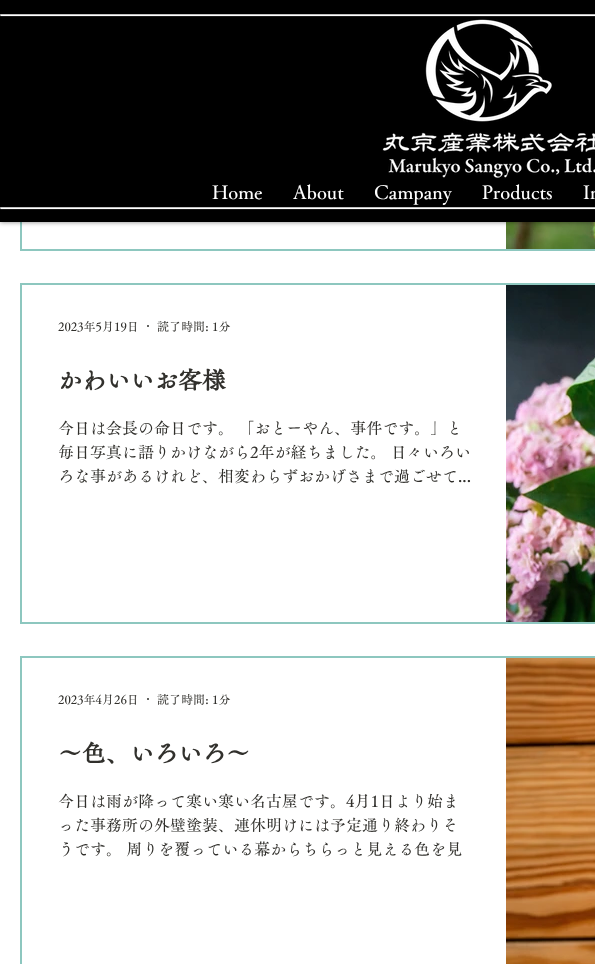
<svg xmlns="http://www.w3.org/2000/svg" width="595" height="964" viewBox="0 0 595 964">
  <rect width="100%" height="100%" fill="rgb(255,255,255)"/>
  <rect x="21" y="-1" width="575" height="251" fill="none" stroke="rgb(141,199,191)" stroke-width="2"/>
  <image x="506" y="222" width="89" height="27" href="pic3.png"/>
  <rect x="0" y="0" width="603" height="222" fill="rgba(0,0,0,0.5)" filter="blur(2.5px)"/>
  <rect x="0" y="0" width="595" height="222" fill="rgb(0,0,0)"/>
  <path d="M0 16C0 16 0 17 1 17H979C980 17 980 16 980 15L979 16H1Z" fill="rgb(26,26,26)"/>
  <rect x="0" y="14" width="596" height="2" rx="1" fill="rgb(255,255,255)"/>
  <path d="M1 15H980V16C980 15 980 14 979 14H1C0 14 0 15 0 16Z" fill="rgba(0,0,0,0.25)"/>
  <image x="425" y="19" width="127" height="103" href="pic1.png"/>
  <image x="382" y="132" width="213" height="46" href="pic2.png"/>
  <g font-family="'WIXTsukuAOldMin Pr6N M'" font-size="19" font-weight="500" fill="rgb(255,255,255)">
    <text x="212" y="199">Home</text>
    <text x="293" y="199">About</text>
    <text x="374" y="199">Campany</text>
    <text x="482" y="199">Products</text>
    <text x="583" y="199">In</text>
  </g>
  <path d="M0 208C0 209 0 210 1 210H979C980 210 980 209 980 208L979 209H1Z" fill="rgb(26,26,26)"/>
  <rect x="0" y="207" width="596" height="2" rx="1" fill="rgb(255,255,255)"/>
  <path d="M1 208H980V209C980 208 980 207 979 207H1C0 207 0 208 0 209Z" fill="rgba(0,0,0,0.25)"/>
  <rect x="21" y="284" width="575" height="339" fill="none" stroke="rgb(141,199,191)" stroke-width="2"/>
  <text x="58" y="331" font-family="'WIXTsukuAOldMin Pr6N M'" font-size="12" font-weight="500" fill="rgb(49,48,44)">2023年5月19日</text>
  <circle cx="148" cy="326" r="1" fill="rgb(49,48,44)"/>
  <text x="157" y="331" font-family="'WIXTsukuAOldMin Pr6N M'" font-size="12" font-weight="500" fill="rgb(49,48,44)">読了時間: 1分</text>
  <text x="58" y="389" font-family="'WIXTsukuAOldMin Pr6N M'" font-size="24" font-weight="bold" fill="rgb(49,48,44)">かわいいお客様</text>
  <g font-family="'WIXTsukuAOldMin Pr6N M'" font-size="16" font-weight="500" fill="rgb(49,48,44)">
    <text>
      <tspan x="58" y="434">今日は会長の命日です。 「おとーやん、事件です。」と</tspan>
      <tspan x="58" y="458">毎日写真に語りかけながら2年が経ちました。 日々いろい</tspan>
      <tspan x="58" y="482">ろな事があるけれど、相変わらずおかげさまで過ごせて...</tspan>
    </text>
  </g>
  <image x="506" y="285" width="89" height="337" href="pic4.png"/>
  <rect x="21" y="657" width="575" height="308" fill="none" stroke="rgb(141,199,191)" stroke-width="2"/>
  <text x="58" y="704" font-family="'WIXTsukuAOldMin Pr6N M'" font-size="12" font-weight="500" fill="rgb(49,48,44)">2023年4月26日</text>
  <circle cx="148" cy="699" r="1" fill="rgb(49,48,44)"/>
  <text x="157" y="704" font-family="'WIXTsukuAOldMin Pr6N M'" font-size="12" font-weight="500" fill="rgb(49,48,44)">読了時間: 1分</text>
  <text x="58" y="762" font-family="'WIXTsukuAOldMin Pr6N M'" font-size="24" font-weight="bold" fill="rgb(49,48,44)">～色、いろいろ～</text>
  <g font-family="'WIXTsukuAOldMin Pr6N M'" font-size="16" font-weight="500" fill="rgb(49,48,44)">
    <text>
      <tspan x="58" y="807">今日は雨が降って寒い寒い名古屋です。4月1日より始ま</tspan>
      <tspan x="58" y="831">った事務所の外壁塗装、連休明けには予定通り終わりそ</tspan>
      <tspan x="58" y="855">うです。 周りを覆っている幕からちらっと見える色を見</tspan>
    </text>
  </g>
  <image x="506" y="658" width="89" height="306" href="pic5.png"/>
</svg>
